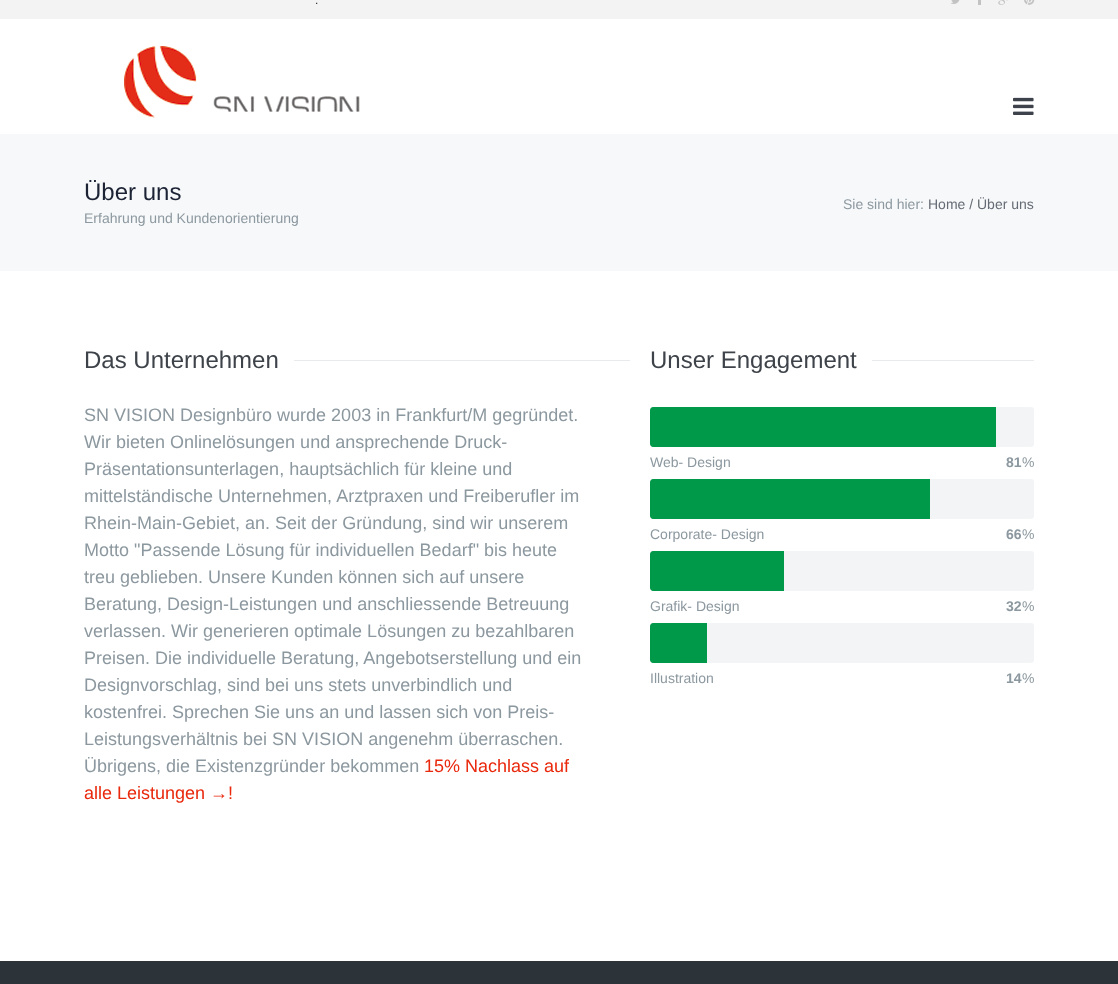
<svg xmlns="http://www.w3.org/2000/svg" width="1118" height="984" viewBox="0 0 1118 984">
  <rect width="100%" height="100%" fill="rgb(247,248,250)"/>
  <rect x="0" y="0" width="1118" height="19" fill="rgb(243,243,243)"/>
  <text x="315" y="4" font-family="Liberation Sans" font-size="12" fill="rgb(41,44,51)">.</text>
  <image x="950" y="0" width="10" height="4" href="pic1.png"/>
  <rect x="978" y="0" width="3" height="5" fill="rgb(194,194,194)"/>
  <image x="998" y="0" width="10" height="5" href="pic2.png"/>
  <image x="1024" y="0" width="11" height="5" href="pic3.png"/>
  <rect x="0" y="19" width="1118" height="115" fill="rgb(255,255,255)"/>
  <image x="124" y="46" width="236" height="72" href="pic4.png"/>
  <image x="1013" y="97" width="21" height="18" href="pic5.png"/>
  <text x="84" y="200" font-family="Liberation Sans" font-size="24" fill="rgb(28,35,52)">Über uns</text>
  <g font-family="Liberation Sans" font-size="14" fill="rgb(140,152,159)">
    <text x="84" y="223">Erfahrung und Kundenorientierung</text>
    <text x="843" y="209">Sie sind hier:</text>
  </g>
  <text x="928" y="209" font-family="Liberation Sans" font-size="14" fill="rgb(101,107,116)">Home / Über uns</text>
  <rect x="0" y="271" width="1118" height="690" fill="rgb(255,255,255)"/>
  <text x="84" y="368" font-family="Liberation Sans" font-size="24" fill="rgb(62,67,74)">Das Unternehmen</text>
  <rect x="294" y="360" width="336" height="1" fill="rgb(232,234,236)"/>
  <g font-family="Liberation Sans" font-size="18" fill="rgb(140,152,159)">
    <text>
      <tspan x="84" y="421">SN VISION Designbüro wurde 2003 in Frankfurt/M gegründet.</tspan>
      <tspan x="84" y="448">Wir bieten Onlinelösungen und ansprechende Druck-</tspan>
      <tspan x="84" y="475">Präsentationsunterlagen, hauptsächlich für kleine und</tspan>
      <tspan x="84" y="502">mittelständische Unternehmen, Arztpraxen und Freiberufler im</tspan>
      <tspan x="84" y="529">Rhein-Main-Gebiet, an. Seit der Gründung, sind wir unserem</tspan>
      <tspan x="84" y="556">Motto "Passende Lösung für individuellen Bedarf" bis heute</tspan>
      <tspan x="84" y="583">treu geblieben. Unsere Kunden können sich auf unsere</tspan>
      <tspan x="84" y="610">Beratung, Design-Leistungen und anschliessende Betreuung</tspan>
      <tspan x="84" y="637">verlassen. Wir generieren optimale Lösungen zu bezahlbaren</tspan>
      <tspan x="84" y="664">Preisen. Die individuelle Beratung, Angebotserstellung und ein</tspan>
      <tspan x="84" y="691">Designvorschlag, sind bei uns stets unverbindlich und</tspan>
      <tspan x="84" y="718">kostenfrei. Sprechen Sie uns an und lassen sich von Preis-</tspan>
      <tspan x="84" y="745">Leistungsverhältnis bei SN VISION angenehm überraschen.</tspan>
      <tspan x="84" y="772">Übrigens, die Existenzgründer bekommen</tspan>
    </text>
  </g>
  <g font-family="Liberation Sans" font-size="18" fill="rgb(233,40,12)">
    <text x="424" y="772">15% Nachlass auf</text>
    <text x="84" y="799">alle Leistungen →!</text>
  </g>
  <text x="650" y="368" font-family="Liberation Sans" font-size="24" fill="rgb(62,67,74)">Unser Engagement</text>
  <rect x="872" y="360" width="162" height="1" fill="rgb(232,234,236)"/>
  <rect x="650" y="407" width="384" height="40" rx="3" fill="rgb(243,244,245)"/>
  <path d="M653 407H996V447H653C651.5 447 650 445.5 650 444V410C650 408.5 651.5 407 653 407Z" fill="rgb(0,153,73)"/>
  <text x="650" y="467" font-family="Liberation Sans" font-size="14" fill="rgb(140,152,159)">Web- Design</text>
  <text x="1006" y="467" font-family="Liberation Sans" font-size="14" font-weight="bold" fill="rgb(140,152,159)">81</text>
  <text x="1022" y="467" font-family="Liberation Sans" font-size="14" fill="rgb(140,152,159)">%</text>
  <rect x="650" y="479" width="384" height="40" rx="3" fill="rgb(243,244,245)"/>
  <path d="M653 479H930V519H653C651.5 519 650 517.5 650 516V482C650 480.5 651.5 479 653 479Z" fill="rgb(0,153,73)"/>
  <text x="650" y="539" font-family="Liberation Sans" font-size="14" fill="rgb(140,152,159)">Corporate- Design</text>
  <text x="1006" y="539" font-family="Liberation Sans" font-size="14" font-weight="bold" fill="rgb(140,152,159)">66</text>
  <text x="1022" y="539" font-family="Liberation Sans" font-size="14" fill="rgb(140,152,159)">%</text>
  <rect x="650" y="551" width="384" height="40" rx="3" fill="rgb(243,244,245)"/>
  <path d="M653 551H784V591H653C651.5 591 650 589.5 650 588V554C650 552.5 651.5 551 653 551Z" fill="rgb(0,153,73)"/>
  <text x="650" y="611" font-family="Liberation Sans" font-size="14" fill="rgb(140,152,159)">Grafik- Design</text>
  <text x="1006" y="611" font-family="Liberation Sans" font-size="14" font-weight="bold" fill="rgb(140,152,159)">32</text>
  <text x="1022" y="611" font-family="Liberation Sans" font-size="14" fill="rgb(140,152,159)">%</text>
  <rect x="650" y="623" width="384" height="40" rx="3" fill="rgb(243,244,245)"/>
  <path d="M653 623H707V663H653C651.5 663 650 661.5 650 660V626C650 624.5 651.5 623 653 623Z" fill="rgb(0,153,73)"/>
  <text x="650" y="683" font-family="Liberation Sans" font-size="14" fill="rgb(140,152,159)">Illustration</text>
  <text x="1006" y="683" font-family="Liberation Sans" font-size="14" font-weight="bold" fill="rgb(140,152,159)">14</text>
  <text x="1022" y="683" font-family="Liberation Sans" font-size="14" fill="rgb(140,152,159)">%</text>
  <rect x="0" y="961" width="1118" height="23" fill="rgb(44,51,57)"/>
</svg>
